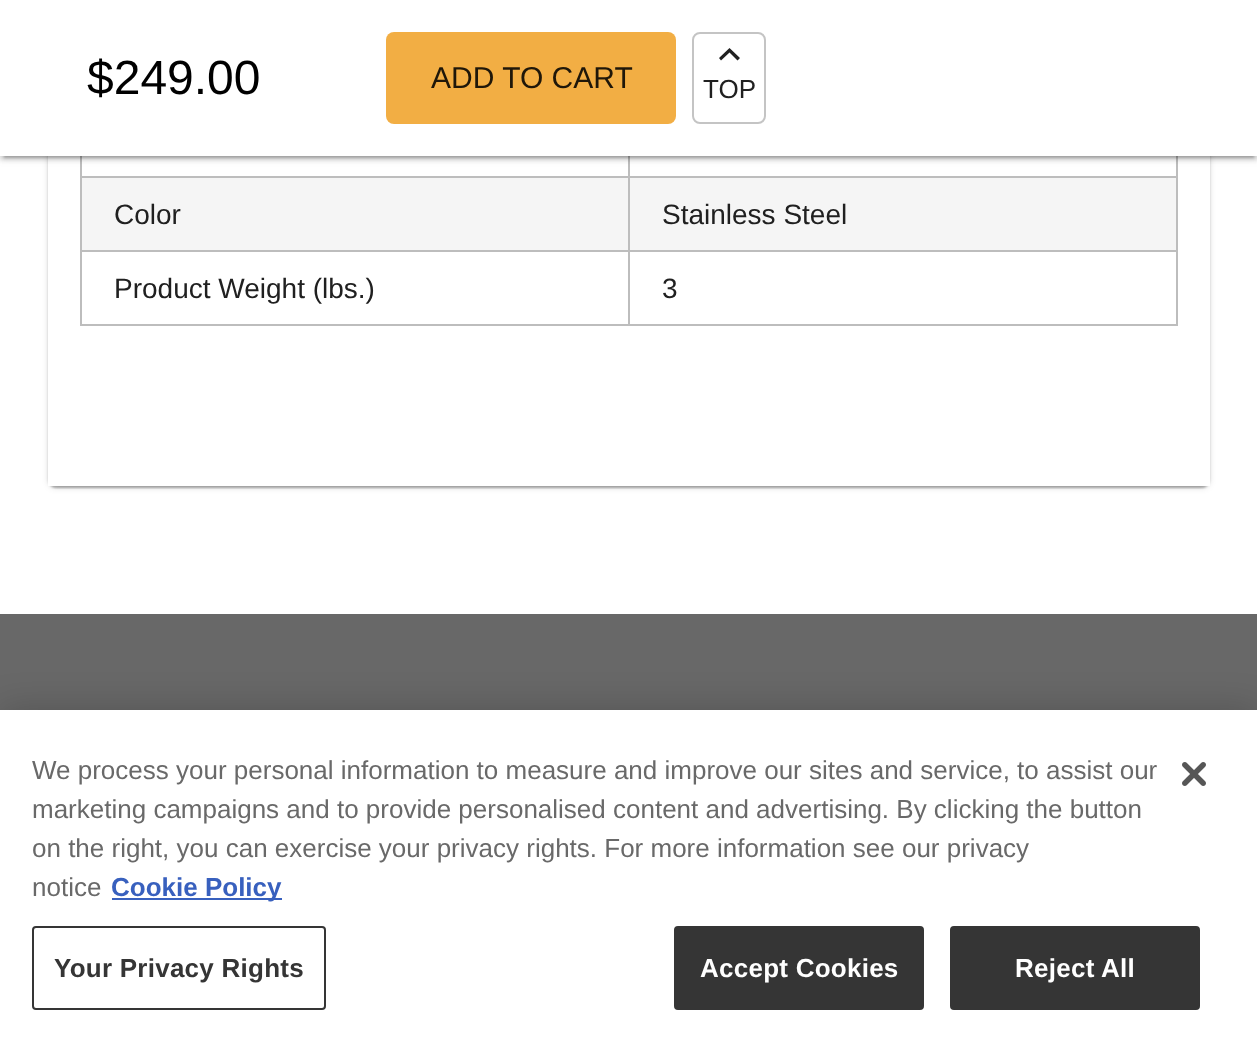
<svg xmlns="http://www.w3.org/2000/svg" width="1257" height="1050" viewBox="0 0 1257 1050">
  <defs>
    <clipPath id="clip1"><path d="M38 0H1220V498H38ZM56-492H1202C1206.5-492 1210-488.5 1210-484V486H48V-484C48-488.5 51.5-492 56-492Z" clip-rule="evenodd"/></clipPath>
    <clipPath id="clip2"><path d="M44 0H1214V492H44ZM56-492H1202C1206.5-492 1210-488.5 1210-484V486H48V-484C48-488.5 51.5-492 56-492Z" clip-rule="evenodd"/></clipPath>
    <clipPath id="clip3"><rect x="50" y="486" width="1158" height="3"/></clipPath>
  </defs>
  <rect width="100%" height="100%" fill="rgb(255,255,255)"/>
  <g clip-path="url(#clip1)">
    <rect x="48" y="-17" width="1162" height="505" rx="8" fill="rgba(0,0,0,0.12)" filter="blur(3px)"/>
  </g>
  <g clip-path="url(#clip2)">
    <rect x="48" y="-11" width="1162" height="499" rx="8" fill="rgba(0,0,0,0.14)" filter="blur(1px)"/>
  </g>
  <g clip-path="url(#clip3)">
    <rect x="50" y="-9" width="1158" height="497" rx="6" fill="rgba(0,0,0,0.2)" filter="blur(1px)"/>
  </g>
  <rect x="628" y="176" width="550" height="2" fill="rgb(189,189,189)"/>
  <rect x="82" y="178" width="1094" height="72" fill="rgb(245,245,245)"/>
  <rect x="628" y="250" width="550" height="2" fill="rgb(189,189,189)"/>
  <rect x="1176" y="250" width="2" height="76" fill="rgb(189,189,189)"/>
  <rect x="628" y="324" width="550" height="2" fill="rgb(189,189,189)"/>
  <rect x="628" y="250" width="2" height="76" fill="rgb(189,189,189)"/>
  <rect x="80" y="250" width="550" height="2" fill="rgb(189,189,189)"/>
  <rect x="628" y="176" width="2" height="76" fill="rgb(189,189,189)"/>
  <rect x="80" y="176" width="550" height="2" fill="rgb(189,189,189)"/>
  <rect x="628" y="156" width="2" height="22" fill="rgb(189,189,189)"/>
  <rect x="80" y="324" width="550" height="2" fill="rgb(189,189,189)"/>
  <rect x="80" y="250" width="2" height="76" fill="rgb(189,189,189)"/>
  <rect x="80" y="156" width="2" height="96" fill="rgb(189,189,189)"/>
  <rect x="1176" y="156" width="2" height="96" fill="rgb(189,189,189)"/>
  <rect x="0" y="2" width="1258" height="156" fill="rgba(0,0,0,0.12)" filter="blur(5px)"/>
  <rect x="0" y="4" width="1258" height="156" fill="rgba(0,0,0,0.14)" filter="blur(2px)"/>
  <rect x="4" y="10" width="1250" height="148" fill="rgba(0,0,0,0.2)" filter="blur(1px)"/>
  <rect x="0" y="0" width="1257" height="156" fill="rgb(255,255,255)"/>
  <text x="87" y="94" font-family="Liberation Sans" font-size="48" fill="rgb(0,0,0)">$249.00</text>
  <rect x="386" y="32" width="290" height="92" rx="8" fill="rgb(242,174,68)"/>
  <text x="431" y="88" font-family="Liberation Sans" font-size="30" fill="rgb(31,23,9)">ADD TO CART</text>
  <rect x="693" y="33" width="72" height="90" rx="7" fill="none" stroke="rgb(196,196,196)" stroke-width="2"/>
  <path d="M729.5 48L740 58L737.5 60.5L729.5 52.5L721 60.5L719 58Z" fill="rgb(33,33,33)"/>
  <text x="703" y="98" font-family="Liberation Sans" font-size="26" fill="rgb(32,32,32)">TOP</text>
  <g font-family="Liberation Sans" font-size="28" fill="rgb(32,32,32)">
    <text x="114" y="224">Color</text>
    <text x="662" y="224">Stainless Steel</text>
    <text x="114" y="298">Product Weight (lbs.)</text>
    <text x="662" y="298">3</text>
  </g>
  <rect x="0" y="614" width="1257" height="96" fill="rgb(104,104,104)"/>
  <rect x="0" y="710" width="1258" height="340" fill="rgba(0,0,0,0.2)" filter="blur(18px)"/>
  <rect x="0" y="710" width="1257" height="340" fill="rgb(255,255,255)"/>
  <g font-family="Liberation Sans" font-size="26" fill="rgb(105,105,105)">
    <text>
      <tspan x="32" y="779">We process your personal information to measure and improve our sites and service, to assist our</tspan>
      <tspan x="32" y="818">marketing campaigns and to provide personalised content and advertising. By clicking the button</tspan>
      <tspan x="32" y="857">on the right, you can exercise your privacy rights. For more information see our privacy</tspan>
      <tspan x="32" y="896">notice</tspan>
    </text>
  </g>
  <rect x="112" y="898" width="170" height="2" fill="rgb(56,96,190)"/>
  <text x="111" y="896" font-family="Liberation Sans" font-size="26" font-weight="bold" fill="rgb(56,96,190)">Cookie Policy</text>
  <rect x="33" y="927" width="292" height="82" rx="3" fill="none" stroke="rgb(53,53,53)" stroke-width="2"/>
  <text x="54" y="977" font-family="Liberation Sans" font-size="26" font-weight="bold" letter-spacing="0.25" fill="rgb(53,53,53)">Your Privacy Rights</text>
  <rect x="675" y="927" width="248" height="82" rx="3" fill="rgb(53,53,53)" stroke="rgb(53,53,53)" stroke-width="2"/>
  <text x="700" y="977" font-family="Liberation Sans" font-size="26" font-weight="bold" letter-spacing="0.25" fill="rgb(255,255,255)">Accept Cookies</text>
  <rect x="951" y="927" width="248" height="82" rx="3" fill="rgb(53,53,53)" stroke="rgb(53,53,53)" stroke-width="2"/>
  <text x="1015" y="977" font-family="Liberation Sans" font-size="26" font-weight="bold" letter-spacing="0.25" fill="rgb(255,255,255)">Reject All</text>
  <image x="1182" y="762" width="24" height="24" href="pic1.png"/>
</svg>
